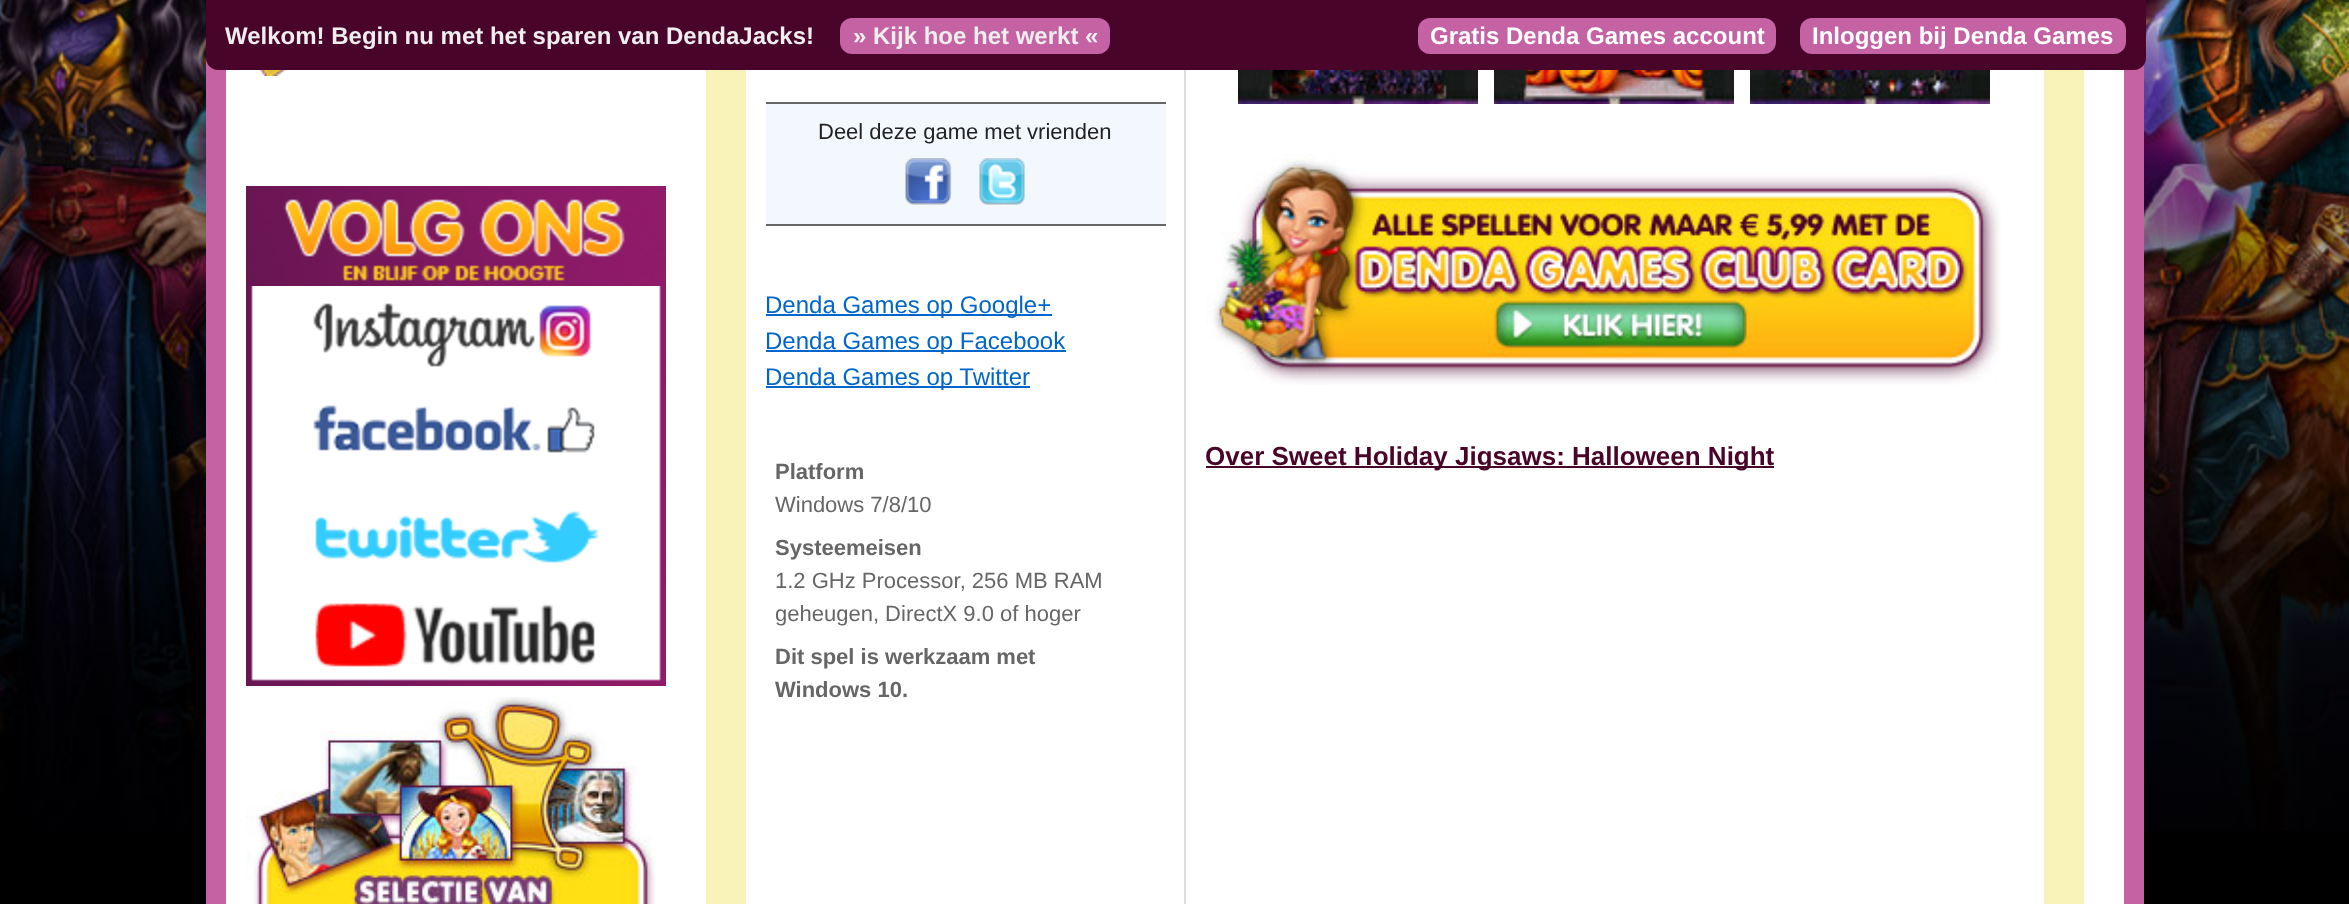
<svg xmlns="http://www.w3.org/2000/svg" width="2349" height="904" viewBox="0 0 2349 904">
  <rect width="100%" height="100%" fill="rgb(0,0,0)"/>
  <image x="0" y="0" width="2349" height="831" href="pic1.png"/>
  <rect x="226" y="70" width="1898" height="834" fill="rgb(255,255,255)"/>
  <path d="M218-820H2132C2139-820 2144-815 2144-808V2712H206V-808C206-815 211-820 218-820ZM226-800H2124V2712H226Z" fill="rgb(196,98,164)" fill-rule="evenodd"/>
  <path d="M206 0H2146V58C2146 64.5 2140.5 70 2134 70H218C211.5 70 206 64.5 206 58Z" fill="rgb(73,4,42)"/>
  <text x="225" y="44" font-family="Liberation Sans" font-size="24" font-weight="bold" fill="rgb(238,238,238)">Welkom! Begin nu met het sparen van DendaJacks!</text>
  <rect x="840" y="18" width="270" height="36" rx="12" fill="rgb(196,98,164)"/>
  <text x="853" y="44" font-family="Liberation Sans" font-size="24" font-weight="bold" fill="rgb(238,238,238)">» Kijk hoe het werkt «</text>
  <rect x="1418" y="18" width="358" height="36" rx="12" fill="rgb(196,98,164)"/>
  <text x="1430" y="44" font-family="Liberation Sans" font-size="24" font-weight="bold" fill="rgb(255,255,255)">Gratis Denda Games account</text>
  <rect x="1800" y="18" width="326" height="36" rx="12" fill="rgb(196,98,164)"/>
  <text x="1812" y="44" font-family="Liberation Sans" font-size="24" font-weight="bold" fill="rgb(255,255,255)">Inloggen bij Denda Games</text>
  <image x="259" y="70" width="29" height="6" href="pic2.png"/>
  <image x="246" y="186" width="420" height="100" href="pic3.png"/>
  <image x="246" y="286" width="420" height="100" href="pic4.png"/>
  <image x="246" y="386" width="420" height="100" href="pic5.png"/>
  <image x="246" y="486" width="420" height="100" href="pic6.png"/>
  <image x="246" y="586" width="420" height="100" href="pic7.png"/>
  <image x="246" y="697" width="410" height="207" href="pic8.png"/>
  <rect x="706" y="70" width="1378" height="834" fill="rgb(249,243,186)"/>
  <rect x="746" y="70" width="1298" height="834" fill="rgb(255,255,255)"/>
  <rect x="766" y="104" width="400" height="120" fill="rgb(243,248,255)"/>
  <rect x="766" y="102" width="400" height="2" fill="rgb(102,102,102)"/>
  <rect x="766" y="224" width="400" height="2" fill="rgb(102,102,102)"/>
  <text x="818" y="139" font-family="Liberation Sans" font-size="22" fill="rgb(34,34,34)">Deel deze game met vrienden</text>
  <image x="905" y="158" width="47" height="47" href="pic9.png"/>
  <image x="979" y="158" width="46" height="47" href="pic10.png"/>
  <rect x="766" y="314" width="286" height="2" fill="rgb(0,102,204)"/>
  <text x="765" y="313" font-family="Liberation Sans" font-size="24" fill="rgb(0,102,204)">Denda Games op Google+</text>
  <rect x="766" y="350" width="300" height="2" fill="rgb(0,102,204)"/>
  <text x="765" y="349" font-family="Liberation Sans" font-size="24" fill="rgb(0,102,204)">Denda Games op Facebook</text>
  <rect x="766" y="386" width="264" height="2" fill="rgb(0,102,204)"/>
  <text x="765" y="385" font-family="Liberation Sans" font-size="24" fill="rgb(0,102,204)">Denda Games op Twitter</text>
  <text x="775" y="479" font-family="Liberation Sans" font-size="22" font-weight="bold" fill="rgb(102,102,102)">Platform</text>
  <text x="775" y="512" font-family="Liberation Sans" font-size="22" fill="rgb(102,102,102)">Windows 7/8/10</text>
  <text x="775" y="555" font-family="Liberation Sans" font-size="22" font-weight="bold" fill="rgb(102,102,102)">Systeemeisen</text>
  <g font-family="Liberation Sans" font-size="22" fill="rgb(102,102,102)">
    <text>
      <tspan x="775" y="588">1.2 GHz Processor, 256 MB RAM</tspan>
      <tspan x="775" y="621">geheugen, DirectX 9.0 of hoger</tspan>
    </text>
  </g>
  <g font-family="Liberation Sans" font-size="22" font-weight="bold" fill="rgb(102,102,102)">
    <text>
      <tspan x="775" y="664">Dit spel is werkzaam met</tspan>
      <tspan x="775" y="697">Windows 10.</tspan>
    </text>
  </g>
  <rect x="1184" y="70" width="2" height="834" fill="rgb(221,221,221)"/>
  <image x="1238" y="70" width="240" height="34" href="pic11.png"/>
  <image x="1494" y="70" width="240" height="34" href="pic12.png"/>
  <image x="1750" y="70" width="240" height="34" href="pic13.png"/>
  <image x="1206" y="154" width="795" height="231" href="pic14.png"/>
  <rect x="1206" y="466" width="568" height="2" fill="rgb(73,4,42)"/>
  <text x="1205" y="465" font-family="Liberation Sans" font-size="26" font-weight="bold" fill="rgb(73,4,42)">Over Sweet Holiday Jigsaws: Halloween Night</text>
</svg>
